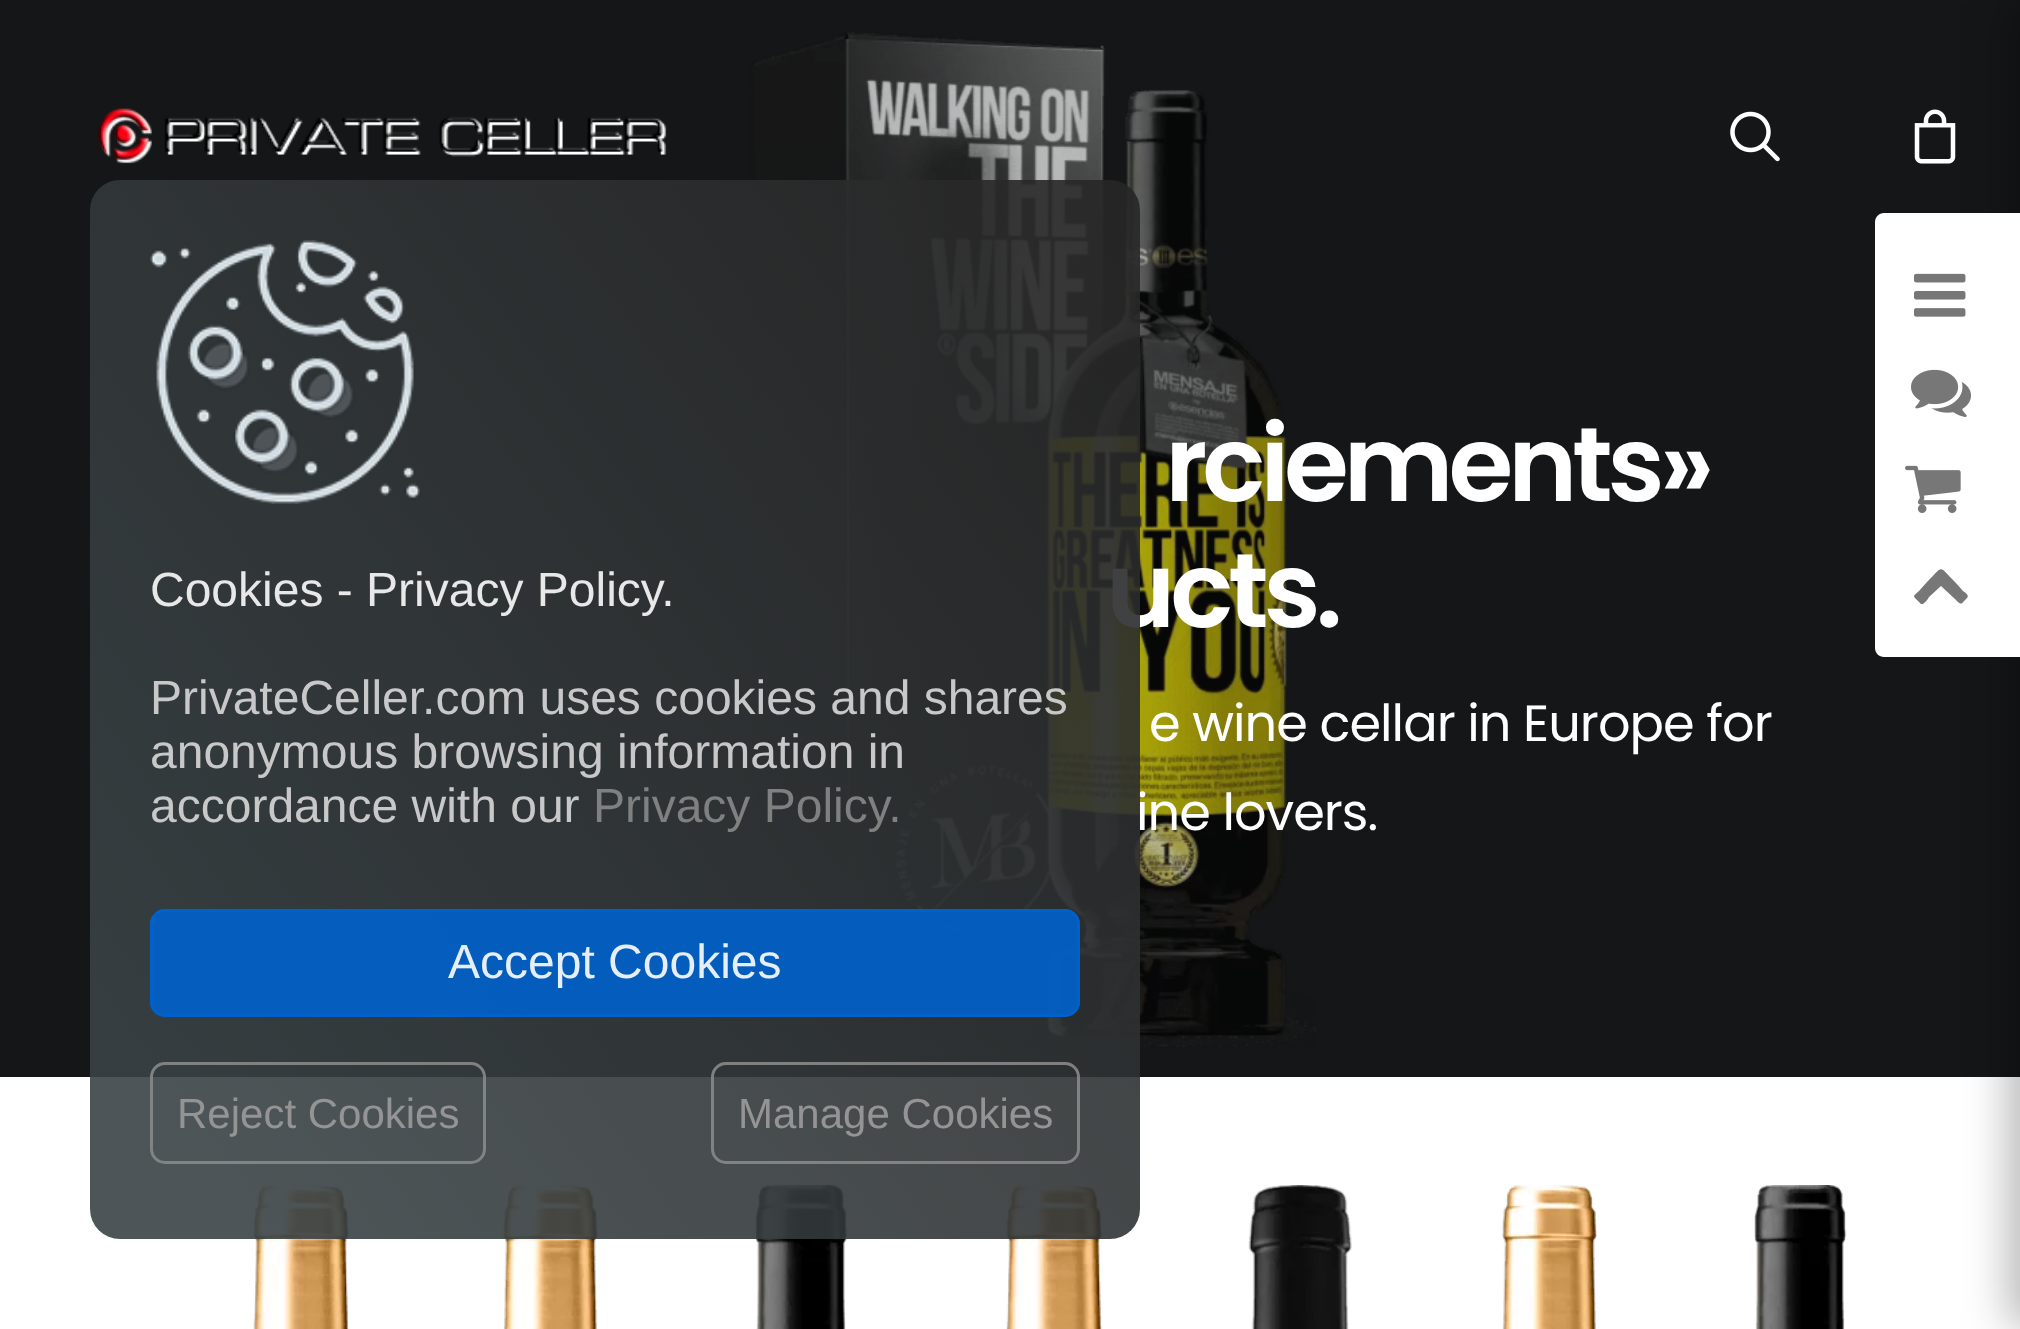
<svg xmlns="http://www.w3.org/2000/svg" width="2020" height="1329" viewBox="0 0 2020 1329">
  <defs>
    <linearGradient id="g1" gradientUnits="userSpaceOnUse" x1="1210" y1="277" x2="20" y2="1142"><stop offset="0" stop-color="rgb(39,38,38)" stop-opacity="0.9"/><stop offset="0.9" stop-color="rgb(57,66,69)" stop-opacity="0.9"/></linearGradient>
  </defs>
  <rect width="100%" height="100%" fill="rgb(20,22,24)"/>
  <image x="725" y="32" width="592" height="1016" href="pic5.png"/>
  <text x="1106" y="627" font-family="Poppins" font-size="105" font-weight="600" letter-spacing="-5.25" fill="rgb(255,255,255)">ucts.</text>
  <text x="1136" y="830" font-family="Poppins" font-size="51" letter-spacing="-1" fill="rgb(255,255,255)">ine lovers.</text>
  <rect x="0" y="1077" width="2020" height="252" fill="rgb(255,255,255)"/>
  <image x="253" y="1185" width="96" height="144" href="pic6.png"/>
  <image x="503" y="1185" width="95" height="144" href="pic7.png"/>
  <image x="754" y="1185" width="94" height="144" href="pic8.png"/>
  <image x="1006" y="1185" width="96" height="144" href="pic9.png"/>
  <rect x="90" y="180" width="1050" height="1059" rx="30" fill="url(#g1)"/>
  <image x="150" y="240" width="270" height="264" href="pic1.png"/>
  <text x="150" y="606" font-family="Liberation Sans" font-size="48" fill="rgb(232,232,232)">Cookies - Privacy Policy.</text>
  <g font-family="Liberation Sans" font-size="48" fill="rgb(200,200,201)">
    <text>
      <tspan x="150" y="714">PrivateCeller.com uses cookies and shares</tspan>
      <tspan x="150" y="768">anonymous browsing information in</tspan>
      <tspan x="150" y="822">accordance with our</tspan>
    </text>
  </g>
  <text x="593" y="822" font-family="Liberation Sans" font-size="48" fill="rgb(127,128,128)">Privacy Policy.</text>
  <rect x="150" y="909" width="930" height="108" rx="15" fill="rgba(0,98,204,0.9)"/>
  <rect x="151.5" y="910.5" width="927" height="105" rx="13.5" fill="none" stroke="rgba(0,98,204,0.9)" stroke-width="3"/>
  <text x="448" y="978" font-family="Liberation Sans" font-size="48" fill="rgb(230,239,248)">Accept Cookies</text>
  <rect x="151.5" y="1063.5" width="333" height="99" rx="13.5" fill="none" stroke="rgba(136,136,136,0.9)" stroke-width="3"/>
  <text x="177" y="1128" font-family="Liberation Sans" font-size="42" fill="rgb(148,148,148)">Reject Cookies</text>
  <rect x="712.5" y="1063.5" width="366" height="99" rx="13.5" fill="none" stroke="rgba(136,136,136,0.9)" stroke-width="3"/>
  <text x="738" y="1128" font-family="Liberation Sans" font-size="42" fill="rgb(148,148,148)">Manage Cookies</text>
  <image x="97" y="108" width="570" height="56" href="pic2.png"/>
  <image x="1730" y="111" width="50" height="51" href="pic3.png"/>
  <image x="1914" y="109" width="42" height="55" href="pic4.png"/>
  <text x="1165" y="501" font-family="Poppins" font-size="105" font-weight="600" letter-spacing="-5.25" fill="rgb(255,255,255)">rciements»</text>
  <text x="1149" y="741" font-family="Poppins" font-size="51" letter-spacing="-1" fill="rgb(255,255,255)">e wine cellar in Europe for</text>
  <image x="1248" y="1185" width="104" height="144" href="pic10.png"/>
  <image x="1501" y="1185" width="96" height="144" href="pic11.png"/>
  <image x="1754" y="1185" width="93" height="144" href="pic12.png"/>
  <rect x="2010" y="3" width="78" height="1323" fill="rgba(0,0,0,0.3)" filter="blur(22.5px)"/>
  <path d="M1884 213H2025V657H1884C1879 657 1875 653 1875 648V222C1875 217 1879 213 1884 213Z" fill="rgb(255,255,255)"/>
  <image x="1914" y="273" width="52" height="44" href="pic13.png"/>
  <image x="1911" y="369" width="60" height="48" href="pic14.png"/>
  <image x="1905" y="465" width="56" height="48" href="pic15.png"/>
  <path d="M1967 598C1961 604 1962 606 1956 600L1941 586L1929 597C1928 599 1924 605 1921 604L1917 600C1912 595 1914 596 1919 591L1927 582C1944 565 1938 565 1955 582L1963 591C1964 592 1970 595 1967 598Z" fill="rgb(119,119,119)"/>
</svg>
